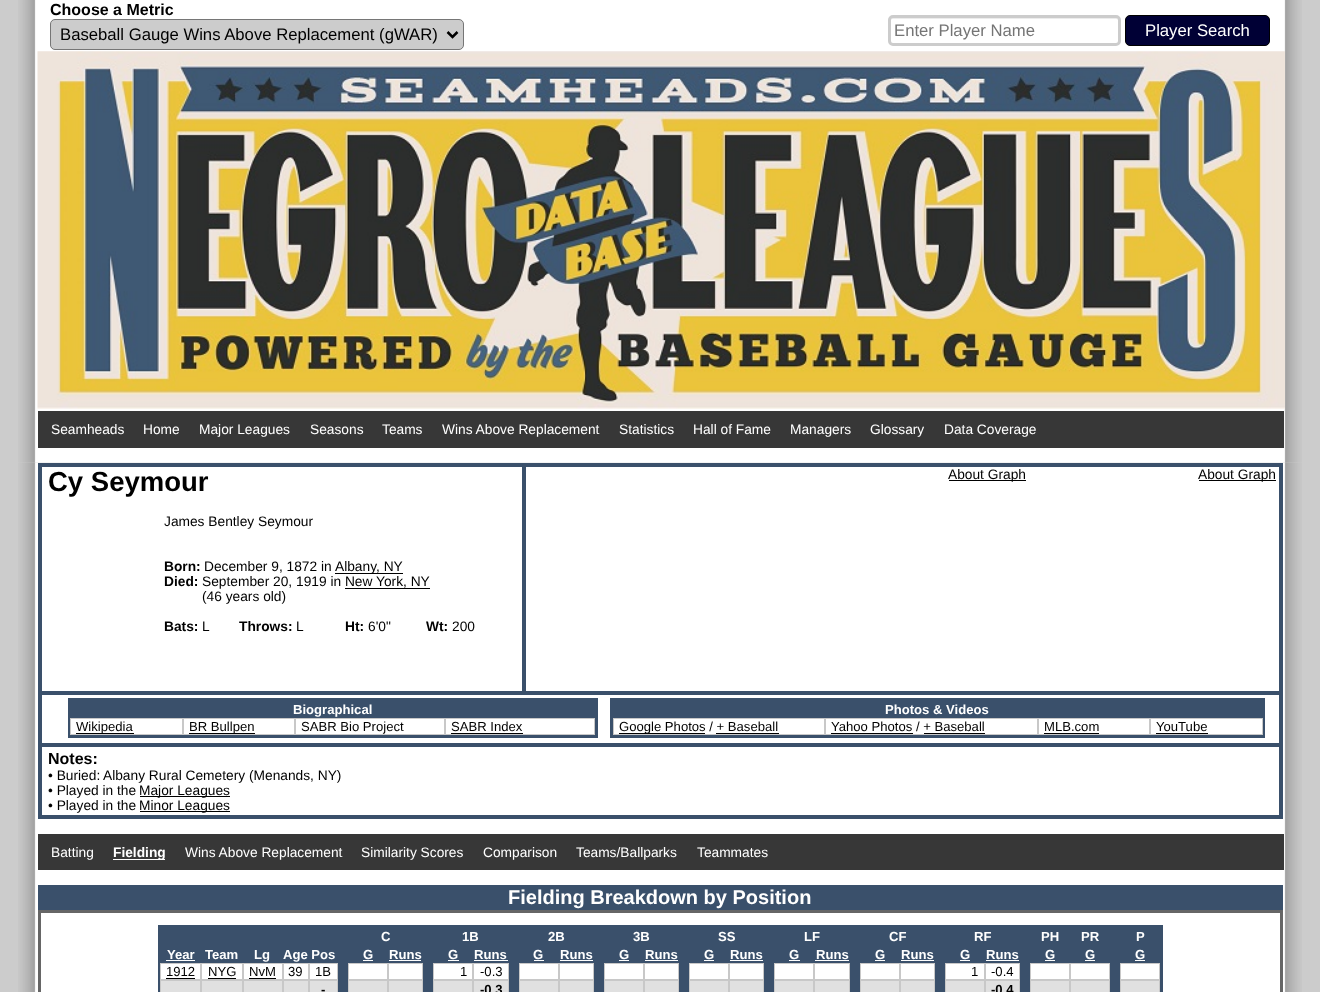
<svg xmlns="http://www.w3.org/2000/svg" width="1320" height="992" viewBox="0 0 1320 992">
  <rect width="100%" height="100%" fill="rgb(204,204,204)"/>
  <image x="18" y="0" width="1284" height="463" href="pic1.png"/>
  <text x="50" y="15" font-family="Liberation Sans" font-size="16" font-weight="bold" fill="rgb(0,0,0)">Choose a Metric</text>
  <rect x="50.5" y="19.5" width="413" height="30" rx="4.5" fill="rgb(204,204,204)" stroke="rgb(118,118,118)"/>
  <path d="M447.5 32L452.5 37L457.5 32" fill="none" stroke="rgb(0,0,0)" stroke-width="2.5"/>
  <text x="60" y="40" font-family="Liberation Sans" font-size="16.7" fill="rgb(0,0,0)">Baseball Gauge Wins Above Replacement (gWAR)</text>
  <path d="M892 19H1116C1118 19 1119 20 1119 21C1119 19 1118 18 1116 18H892C891 18 890 19 890 21C890 20 891 19 892 19Z" fill="rgb(236,236,236)"/>
  <rect x="889.5" y="16.5" width="230" height="28" rx="3.5" fill="none" stroke="rgb(204,204,204)" stroke-width="3"/>
  <text x="894" y="36" font-family="Liberation Sans" font-size="16.7" fill="rgb(117,117,117)">Enter Player Name</text>
  <rect x="1125.5" y="15.5" width="144" height="30" rx="4.5" fill="rgb(0,0,53)" stroke="rgb(0,0,0)"/>
  <text x="1145" y="36" font-family="Liberation Sans" font-size="16.7" fill="rgb(255,255,255)">Player Search</text>
  <image x="37" y="51" width="1248" height="358" href="pic2.png"/>
  <rect x="38" y="411" width="1246" height="37" fill="rgb(55,55,55)"/>
  <g font-family="Liberation Sans" font-size="13.75" fill="rgb(255,255,255)">
    <text x="51" y="434">Seamheads</text>
    <text x="143" y="434">Home</text>
    <text x="199" y="434">Major Leagues</text>
    <text x="310" y="434">Seasons</text>
    <text x="382" y="434">Teams</text>
    <text x="442" y="434">Wins Above Replacement</text>
    <text x="619" y="434">Statistics</text>
    <text x="693" y="434">Hall of Fame</text>
    <text x="790" y="434">Managers</text>
    <text x="870" y="434">Glossary</text>
    <text x="944" y="434">Data Coverage</text>
  </g>
  <image x="18" y="462" width="1284" height="530" href="pic3.png"/>
  <rect x="40" y="465" width="484" height="228" fill="none" stroke="rgb(58,80,107)" stroke-width="4"/>
  <text x="48" y="491" font-family="Liberation Sans" font-size="27.5" font-weight="bold" fill="rgb(0,0,0)">Cy Seymour</text>
  <text x="164" y="526" font-family="Liberation Sans" font-size="13.75" fill="rgb(0,0,0)">James Bentley Seymour</text>
  <text x="164" y="571" font-family="Liberation Sans" font-size="13.75" font-weight="bold" fill="rgb(0,0,0)">Born:</text>
  <text x="204" y="571" font-family="Liberation Sans" font-size="13.75" fill="rgb(0,0,0)">December 9, 1872 in</text>
  <rect x="335" y="573" width="68" height="1" fill="rgb(0,0,0)"/>
  <text x="335" y="571" font-family="Liberation Sans" font-size="13.75" fill="rgb(0,0,0)">Albany, NY</text>
  <text x="164" y="586" font-family="Liberation Sans" font-size="13.75" font-weight="bold" fill="rgb(0,0,0)">Died:</text>
  <text x="202" y="586" font-family="Liberation Sans" font-size="13.75" fill="rgb(0,0,0)">September 20, 1919 in New York, NY</text>
  <rect x="345" y="588" width="85" height="1" fill="rgb(0,0,0)"/>
  <text x="202" y="601" font-family="Liberation Sans" font-size="13.75" fill="rgb(0,0,0)">(46 years old)</text>
  <text x="164" y="631" font-family="Liberation Sans" font-size="13.75" font-weight="bold" fill="rgb(0,0,0)">Bats:</text>
  <text x="202" y="631" font-family="Liberation Sans" font-size="13.75" fill="rgb(0,0,0)">L</text>
  <text x="239" y="631" font-family="Liberation Sans" font-size="13.75" font-weight="bold" fill="rgb(0,0,0)">Throws:</text>
  <text x="296" y="631" font-family="Liberation Sans" font-size="13.75" fill="rgb(0,0,0)">L</text>
  <text x="345" y="631" font-family="Liberation Sans" font-size="13.75" font-weight="bold" fill="rgb(0,0,0)">Ht:</text>
  <text x="368" y="631" font-family="Liberation Sans" font-size="13.75" fill="rgb(0,0,0)">6'0"</text>
  <text x="426" y="631" font-family="Liberation Sans" font-size="13.75" font-weight="bold" fill="rgb(0,0,0)">Wt:</text>
  <text x="452" y="631" font-family="Liberation Sans" font-size="13.75" fill="rgb(0,0,0)">200</text>
  <rect x="526" y="463" width="757" height="4" fill="rgb(58,80,107)"/>
  <rect x="1279" y="463" width="4" height="283" fill="rgb(58,80,107)"/>
  <rect x="526" y="691" width="757" height="4" fill="rgb(58,80,107)"/>
  <rect x="949" y="480" width="77" height="1" fill="rgb(0,0,0)"/>
  <text x="948" y="479" font-family="Liberation Sans" font-size="13.75" fill="rgb(0,0,0)">About Graph</text>
  <rect x="1199" y="480" width="77" height="1" fill="rgb(0,0,0)"/>
  <text x="1198" y="479" font-family="Liberation Sans" font-size="13.75" fill="rgb(0,0,0)">About Graph</text>
  <rect x="38" y="743" width="1245" height="4" fill="rgb(58,80,107)"/>
  <rect x="38" y="695" width="4" height="51" fill="rgb(58,80,107)"/>
  <rect x="69.5" y="699.5" width="527" height="37" fill="none" stroke="rgb(58,80,107)" stroke-width="3"/>
  <rect x="71" y="701" width="524" height="17" fill="rgb(58,80,107)"/>
  <text x="293" y="714" font-family="Liberation Sans" font-size="13.1" font-weight="bold" fill="rgb(255,255,255)">Biographical</text>
  <rect x="70.5" y="718.5" width="112" height="16" fill="none" stroke="rgb(200,200,200)"/>
  <rect x="76" y="733" width="58" height="1" fill="rgb(0,0,0)"/>
  <text x="76" y="731" font-family="Liberation Sans" font-size="13.1" fill="rgb(0,0,0)">Wikipedia</text>
  <rect x="183.5" y="718.5" width="111" height="16" fill="none" stroke="rgb(200,200,200)"/>
  <rect x="189" y="733" width="66" height="1" fill="rgb(0,0,0)"/>
  <text x="189" y="731" font-family="Liberation Sans" font-size="13.1" fill="rgb(0,0,0)">BR Bullpen</text>
  <rect x="295.5" y="718.5" width="149" height="16" fill="none" stroke="rgb(200,200,200)"/>
  <text x="301" y="731" font-family="Liberation Sans" font-size="13.1" fill="rgb(0,0,0)">SABR Bio Project</text>
  <rect x="445.5" y="718.5" width="149" height="16" fill="none" stroke="rgb(200,200,200)"/>
  <text x="451" y="731" font-family="Liberation Sans" font-size="13.1" fill="rgb(0,0,0)">SABR Index</text>
  <rect x="451" y="733" width="72" height="1" fill="rgb(0,0,0)"/>
  <rect x="611.5" y="699.5" width="652" height="37" fill="none" stroke="rgb(58,80,107)" stroke-width="3"/>
  <rect x="613" y="701" width="649" height="17" fill="rgb(58,80,107)"/>
  <text x="885" y="714" font-family="Liberation Sans" font-size="13.1" font-weight="bold" fill="rgb(255,255,255)">Photos &amp; Videos</text>
  <rect x="613.5" y="718.5" width="211" height="16" fill="none" stroke="rgb(200,200,200)"/>
  <rect x="619" y="733" width="86" height="1" fill="rgb(0,0,0)"/>
  <text x="619" y="731" font-family="Liberation Sans" font-size="13.1" fill="rgb(0,0,0)">Google Photos / + Baseball</text>
  <rect x="716" y="733" width="63" height="1" fill="rgb(0,0,0)"/>
  <rect x="825.5" y="718.5" width="212" height="16" fill="none" stroke="rgb(200,200,200)"/>
  <text x="831" y="731" font-family="Liberation Sans" font-size="13.1" fill="rgb(0,0,0)">Yahoo Photos / + Baseball</text>
  <rect x="831" y="733" width="82" height="1" fill="rgb(0,0,0)"/>
  <rect x="924" y="733" width="61" height="1" fill="rgb(0,0,0)"/>
  <rect x="1038.5" y="718.5" width="111" height="16" fill="none" stroke="rgb(200,200,200)"/>
  <text x="1044" y="731" font-family="Liberation Sans" font-size="13.1" fill="rgb(0,0,0)">MLB.com</text>
  <rect x="1044" y="733" width="55" height="1" fill="rgb(0,0,0)"/>
  <rect x="1150.5" y="718.5" width="112" height="16" fill="none" stroke="rgb(200,200,200)"/>
  <text x="1156" y="731" font-family="Liberation Sans" font-size="13.1" fill="rgb(0,0,0)">YouTube</text>
  <rect x="1156" y="733" width="52" height="1" fill="rgb(0,0,0)"/>
  <rect x="1279" y="746" width="4" height="73" fill="rgb(58,80,107)"/>
  <rect x="38" y="815" width="1245" height="4" fill="rgb(58,80,107)"/>
  <rect x="38" y="746" width="4" height="73" fill="rgb(58,80,107)"/>
  <text x="48" y="764" font-family="Liberation Sans" font-size="16" font-weight="bold" fill="rgb(0,0,0)">Notes:</text>
  <g font-family="Liberation Sans" font-size="13.75" fill="rgb(0,0,0)">
    <text x="48" y="780">• Buried:</text>
    <text x="103" y="780">Albany Rural Cemetery (Menands, NY)</text>
    <text x="48" y="795">• Played in the</text>
  </g>
  <rect x="140" y="796" width="90" height="1" fill="rgb(0,0,0)"/>
  <g font-family="Liberation Sans" font-size="13.75" fill="rgb(0,0,0)">
    <text x="139" y="795">Major Leagues</text>
    <text x="48" y="810">• Played in the</text>
  </g>
  <rect x="140" y="811" width="90" height="1" fill="rgb(0,0,0)"/>
  <text x="139" y="810" font-family="Liberation Sans" font-size="13.75" fill="rgb(0,0,0)">Minor Leagues</text>
  <rect x="38" y="834" width="1246" height="36" fill="rgb(55,55,55)"/>
  <text x="51" y="857" font-family="Liberation Sans" font-size="13.75" fill="rgb(255,255,255)">Batting</text>
  <rect x="113" y="859" width="52" height="1" fill="rgb(255,255,255)"/>
  <text x="113" y="857" font-family="Liberation Sans" font-size="13.75" font-weight="bold" fill="rgb(255,255,255)">Fielding</text>
  <g font-family="Liberation Sans" font-size="13.75" fill="rgb(255,255,255)">
    <text x="185" y="857">Wins Above Replacement</text>
    <text x="361" y="857">Similarity Scores</text>
    <text x="483" y="857">Comparison</text>
    <text x="576" y="857">Teams/Ballparks</text>
    <text x="697" y="857">Teammates</text>
  </g>
  <rect x="38" y="885" width="1245" height="25" fill="rgb(58,80,107)"/>
  <text x="508" y="904" font-family="Liberation Sans" font-size="20" font-weight="bold" fill="rgb(255,255,255)">Fielding Breakdown by Position</text>
  <rect x="39.5" y="911.5" width="1242" height="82" fill="none" stroke="rgb(102,102,102)" stroke-width="3"/>
  <rect x="159.5" y="926.5" width="1002" height="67" fill="none" stroke="rgb(58,80,107)" stroke-width="3"/>
  <rect x="161" y="928" width="999" height="17" fill="rgb(58,80,107)"/>
  <g font-family="Liberation Sans" font-size="13.1" font-weight="bold" fill="rgb(255,255,255)">
    <text x="381" y="941">C</text>
    <text x="462" y="941">1B</text>
    <text x="548" y="941">2B</text>
    <text x="633" y="941">3B</text>
    <text x="718" y="941">SS</text>
    <text x="804" y="941">LF</text>
    <text x="889" y="941">CF</text>
    <text x="974" y="941">RF</text>
    <text x="1041" y="941">PH</text>
    <text x="1081" y="941">PR</text>
    <text x="1136" y="941">P</text>
  </g>
  <rect x="161" y="945" width="999" height="18" fill="rgb(58,80,107)"/>
  <text x="167" y="959" font-family="Liberation Sans" font-size="13.1" font-weight="bold" fill="rgb(255,255,255)">Year</text>
  <rect x="166" y="960" width="29" height="1" fill="rgb(255,255,255)"/>
  <g font-family="Liberation Sans" font-size="13.1" font-weight="bold" fill="rgb(255,255,255)">
    <text x="205" y="959">Team</text>
    <text x="254" y="959">Lg</text>
    <text x="283" y="959">Age Pos</text>
    <text x="363" y="959">G</text>
  </g>
  <rect x="363" y="960" width="10" height="1" fill="rgb(255,255,255)"/>
  <text x="389" y="959" font-family="Liberation Sans" font-size="13.1" font-weight="bold" fill="rgb(255,255,255)">Runs</text>
  <rect x="389" y="960" width="32" height="1" fill="rgb(255,255,255)"/>
  <text x="448" y="959" font-family="Liberation Sans" font-size="13.1" font-weight="bold" fill="rgb(255,255,255)">G</text>
  <rect x="448" y="960" width="11" height="1" fill="rgb(255,255,255)"/>
  <text x="474" y="959" font-family="Liberation Sans" font-size="13.1" font-weight="bold" fill="rgb(255,255,255)">Runs</text>
  <rect x="474" y="960" width="34" height="1" fill="rgb(255,255,255)"/>
  <text x="533" y="959" font-family="Liberation Sans" font-size="13.1" font-weight="bold" fill="rgb(255,255,255)">G</text>
  <rect x="534" y="960" width="10" height="1" fill="rgb(255,255,255)"/>
  <text x="560" y="959" font-family="Liberation Sans" font-size="13.1" font-weight="bold" fill="rgb(255,255,255)">Runs</text>
  <rect x="560" y="960" width="33" height="1" fill="rgb(255,255,255)"/>
  <text x="619" y="959" font-family="Liberation Sans" font-size="13.1" font-weight="bold" fill="rgb(255,255,255)">G</text>
  <rect x="619" y="960" width="10" height="1" fill="rgb(255,255,255)"/>
  <text x="645" y="959" font-family="Liberation Sans" font-size="13.1" font-weight="bold" fill="rgb(255,255,255)">Runs</text>
  <rect x="645" y="960" width="33" height="1" fill="rgb(255,255,255)"/>
  <text x="704" y="959" font-family="Liberation Sans" font-size="13.1" font-weight="bold" fill="rgb(255,255,255)">G</text>
  <rect x="704" y="960" width="10" height="1" fill="rgb(255,255,255)"/>
  <text x="730" y="959" font-family="Liberation Sans" font-size="13.1" font-weight="bold" fill="rgb(255,255,255)">Runs</text>
  <rect x="730" y="960" width="33" height="1" fill="rgb(255,255,255)"/>
  <text x="789" y="959" font-family="Liberation Sans" font-size="13.1" font-weight="bold" fill="rgb(255,255,255)">G</text>
  <rect x="789" y="960" width="11" height="1" fill="rgb(255,255,255)"/>
  <text x="816" y="959" font-family="Liberation Sans" font-size="13.1" font-weight="bold" fill="rgb(255,255,255)">Runs</text>
  <rect x="815" y="960" width="34" height="1" fill="rgb(255,255,255)"/>
  <text x="875" y="959" font-family="Liberation Sans" font-size="13.1" font-weight="bold" fill="rgb(255,255,255)">G</text>
  <rect x="875" y="960" width="10" height="1" fill="rgb(255,255,255)"/>
  <text x="901" y="959" font-family="Liberation Sans" font-size="13.1" font-weight="bold" fill="rgb(255,255,255)">Runs</text>
  <rect x="901" y="960" width="33" height="1" fill="rgb(255,255,255)"/>
  <text x="960" y="959" font-family="Liberation Sans" font-size="13.1" font-weight="bold" fill="rgb(255,255,255)">G</text>
  <rect x="960" y="960" width="10" height="1" fill="rgb(255,255,255)"/>
  <text x="986" y="959" font-family="Liberation Sans" font-size="13.1" font-weight="bold" fill="rgb(255,255,255)">Runs</text>
  <rect x="986" y="960" width="33" height="1" fill="rgb(255,255,255)"/>
  <text x="1045" y="959" font-family="Liberation Sans" font-size="13.1" font-weight="bold" fill="rgb(255,255,255)">G</text>
  <rect x="1045" y="960" width="10" height="1" fill="rgb(255,255,255)"/>
  <text x="1085" y="959" font-family="Liberation Sans" font-size="13.1" font-weight="bold" fill="rgb(255,255,255)">G</text>
  <rect x="1085" y="960" width="10" height="1" fill="rgb(255,255,255)"/>
  <text x="1135" y="959" font-family="Liberation Sans" font-size="13.1" font-weight="bold" fill="rgb(255,255,255)">G</text>
  <rect x="1135" y="960" width="10" height="1" fill="rgb(255,255,255)"/>
  <rect x="160.5" y="963.5" width="40" height="16" fill="none" stroke="rgb(200,200,200)"/>
  <text x="166" y="976" font-family="Liberation Sans" font-size="13.1" fill="rgb(0,0,0)">1912</text>
  <rect x="166" y="978" width="29" height="1" fill="rgb(0,0,0)"/>
  <rect x="201.5" y="963.5" width="41" height="16" fill="none" stroke="rgb(200,200,200)"/>
  <text x="208" y="976" font-family="Liberation Sans" font-size="13.1" fill="rgb(0,0,0)">NYG</text>
  <rect x="208" y="978" width="28" height="1" fill="rgb(0,0,0)"/>
  <rect x="243.5" y="963.5" width="39" height="16" fill="none" stroke="rgb(200,200,200)"/>
  <text x="249" y="976" font-family="Liberation Sans" font-size="13.1" fill="rgb(0,0,0)">NvM</text>
  <rect x="249" y="978" width="27" height="1" fill="rgb(0,0,0)"/>
  <rect x="283.5" y="963.5" width="25" height="16" fill="none" stroke="rgb(200,200,200)"/>
  <text x="288" y="976" font-family="Liberation Sans" font-size="13.1" fill="rgb(0,0,0)">39</text>
  <rect x="309.5" y="963.5" width="28" height="16" fill="none" stroke="rgb(200,200,200)"/>
  <text x="315" y="976" font-family="Liberation Sans" font-size="13.1" fill="rgb(0,0,0)">1B</text>
  <rect x="338" y="963" width="10" height="17" fill="rgb(58,80,107)"/>
  <rect x="348.5" y="963.5" width="39" height="16" fill="none" stroke="rgb(200,200,200)"/>
  <rect x="388.5" y="963.5" width="34" height="16" fill="none" stroke="rgb(200,200,200)"/>
  <rect x="423" y="963" width="10" height="17" fill="rgb(58,80,107)"/>
  <rect x="433.5" y="963.5" width="39" height="16" fill="none" stroke="rgb(200,200,200)"/>
  <text x="460" y="976" font-family="Liberation Sans" font-size="13.1" fill="rgb(0,0,0)">1</text>
  <rect x="473.5" y="963.5" width="35" height="16" fill="none" stroke="rgb(200,200,200)"/>
  <text x="480" y="976" font-family="Liberation Sans" font-size="13.1" fill="rgb(0,0,0)">-0.3</text>
  <rect x="509" y="963" width="10" height="17" fill="rgb(58,80,107)"/>
  <rect x="519.5" y="963.5" width="39" height="16" fill="none" stroke="rgb(200,200,200)"/>
  <rect x="559.5" y="963.5" width="34" height="16" fill="none" stroke="rgb(200,200,200)"/>
  <rect x="594" y="963" width="10" height="17" fill="rgb(58,80,107)"/>
  <rect x="604.5" y="963.5" width="39" height="16" fill="none" stroke="rgb(200,200,200)"/>
  <rect x="644.5" y="963.5" width="34" height="16" fill="none" stroke="rgb(200,200,200)"/>
  <rect x="679" y="963" width="10" height="17" fill="rgb(58,80,107)"/>
  <rect x="689.5" y="963.5" width="39" height="16" fill="none" stroke="rgb(200,200,200)"/>
  <rect x="729.5" y="963.5" width="34" height="16" fill="none" stroke="rgb(200,200,200)"/>
  <rect x="764" y="963" width="10" height="17" fill="rgb(58,80,107)"/>
  <rect x="774.5" y="963.5" width="39" height="16" fill="none" stroke="rgb(200,200,200)"/>
  <rect x="814.5" y="963.5" width="35" height="16" fill="none" stroke="rgb(200,200,200)"/>
  <rect x="850" y="963" width="10" height="17" fill="rgb(58,80,107)"/>
  <rect x="860.5" y="963.5" width="39" height="16" fill="none" stroke="rgb(200,200,200)"/>
  <rect x="900.5" y="963.5" width="34" height="16" fill="none" stroke="rgb(200,200,200)"/>
  <rect x="935" y="963" width="10" height="17" fill="rgb(58,80,107)"/>
  <rect x="945.5" y="963.5" width="39" height="16" fill="none" stroke="rgb(200,200,200)"/>
  <text x="971" y="976" font-family="Liberation Sans" font-size="13.1" fill="rgb(0,0,0)">1</text>
  <rect x="985.5" y="963.5" width="34" height="16" fill="none" stroke="rgb(200,200,200)"/>
  <text x="991" y="976" font-family="Liberation Sans" font-size="13.1" fill="rgb(0,0,0)">-0.4</text>
  <rect x="1020" y="963" width="10" height="17" fill="rgb(58,80,107)"/>
  <rect x="1030.5" y="963.5" width="39" height="16" fill="none" stroke="rgb(200,200,200)"/>
  <rect x="1070.5" y="963.5" width="39" height="16" fill="none" stroke="rgb(200,200,200)"/>
  <rect x="1110" y="963" width="10" height="17" fill="rgb(58,80,107)"/>
  <rect x="1120.5" y="963.5" width="39" height="16" fill="none" stroke="rgb(200,200,200)"/>
  <rect x="161" y="981" width="998" height="11" fill="rgb(224,224,224)"/>
  <rect x="160.5" y="980.5" width="40" height="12" fill="none" stroke="rgb(200,200,200)"/>
  <rect x="201.5" y="980.5" width="41" height="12" fill="none" stroke="rgb(200,200,200)"/>
  <rect x="243.5" y="980.5" width="39" height="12" fill="none" stroke="rgb(200,200,200)"/>
  <rect x="283.5" y="980.5" width="25" height="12" fill="none" stroke="rgb(200,200,200)"/>
  <rect x="309.5" y="980.5" width="28" height="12" fill="none" stroke="rgb(200,200,200)"/>
  <text x="321" y="994" font-family="Liberation Sans" font-size="13.1" font-weight="bold" fill="rgb(0,0,0)">-</text>
  <rect x="338" y="980" width="10" height="12" fill="rgb(58,80,107)"/>
  <rect x="348.5" y="980.5" width="39" height="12" fill="none" stroke="rgb(200,200,200)"/>
  <rect x="388.5" y="980.5" width="34" height="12" fill="none" stroke="rgb(200,200,200)"/>
  <rect x="423" y="980" width="10" height="12" fill="rgb(58,80,107)"/>
  <rect x="433.5" y="980.5" width="39" height="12" fill="none" stroke="rgb(200,200,200)"/>
  <rect x="473.5" y="980.5" width="35" height="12" fill="none" stroke="rgb(200,200,200)"/>
  <text x="480" y="994" font-family="Liberation Sans" font-size="13.1" font-weight="bold" fill="rgb(0,0,0)">-0.3</text>
  <rect x="509" y="980" width="10" height="12" fill="rgb(58,80,107)"/>
  <rect x="519.5" y="980.5" width="39" height="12" fill="none" stroke="rgb(200,200,200)"/>
  <rect x="559.5" y="980.5" width="34" height="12" fill="none" stroke="rgb(200,200,200)"/>
  <rect x="594" y="980" width="10" height="12" fill="rgb(58,80,107)"/>
  <rect x="604.5" y="980.5" width="39" height="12" fill="none" stroke="rgb(200,200,200)"/>
  <rect x="644.5" y="980.5" width="34" height="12" fill="none" stroke="rgb(200,200,200)"/>
  <rect x="679" y="980" width="10" height="12" fill="rgb(58,80,107)"/>
  <rect x="689.5" y="980.5" width="39" height="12" fill="none" stroke="rgb(200,200,200)"/>
  <rect x="729.5" y="980.5" width="34" height="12" fill="none" stroke="rgb(200,200,200)"/>
  <rect x="764" y="980" width="10" height="12" fill="rgb(58,80,107)"/>
  <rect x="774.5" y="980.5" width="39" height="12" fill="none" stroke="rgb(200,200,200)"/>
  <rect x="814.5" y="980.5" width="35" height="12" fill="none" stroke="rgb(200,200,200)"/>
  <rect x="850" y="980" width="10" height="12" fill="rgb(58,80,107)"/>
  <rect x="860.5" y="980.5" width="39" height="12" fill="none" stroke="rgb(200,200,200)"/>
  <rect x="900.5" y="980.5" width="34" height="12" fill="none" stroke="rgb(200,200,200)"/>
  <rect x="935" y="980" width="10" height="12" fill="rgb(58,80,107)"/>
  <rect x="945.5" y="980.5" width="39" height="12" fill="none" stroke="rgb(200,200,200)"/>
  <rect x="985.5" y="980.5" width="34" height="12" fill="none" stroke="rgb(200,200,200)"/>
  <text x="991" y="994" font-family="Liberation Sans" font-size="13.1" font-weight="bold" fill="rgb(0,0,0)">-0.4</text>
  <rect x="1020" y="980" width="10" height="12" fill="rgb(58,80,107)"/>
  <rect x="1030.5" y="980.5" width="39" height="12" fill="none" stroke="rgb(200,200,200)"/>
  <rect x="1070.5" y="980.5" width="39" height="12" fill="none" stroke="rgb(200,200,200)"/>
  <rect x="1110" y="980" width="10" height="12" fill="rgb(58,80,107)"/>
  <rect x="1120.5" y="980.5" width="39" height="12" fill="none" stroke="rgb(200,200,200)"/>
</svg>
